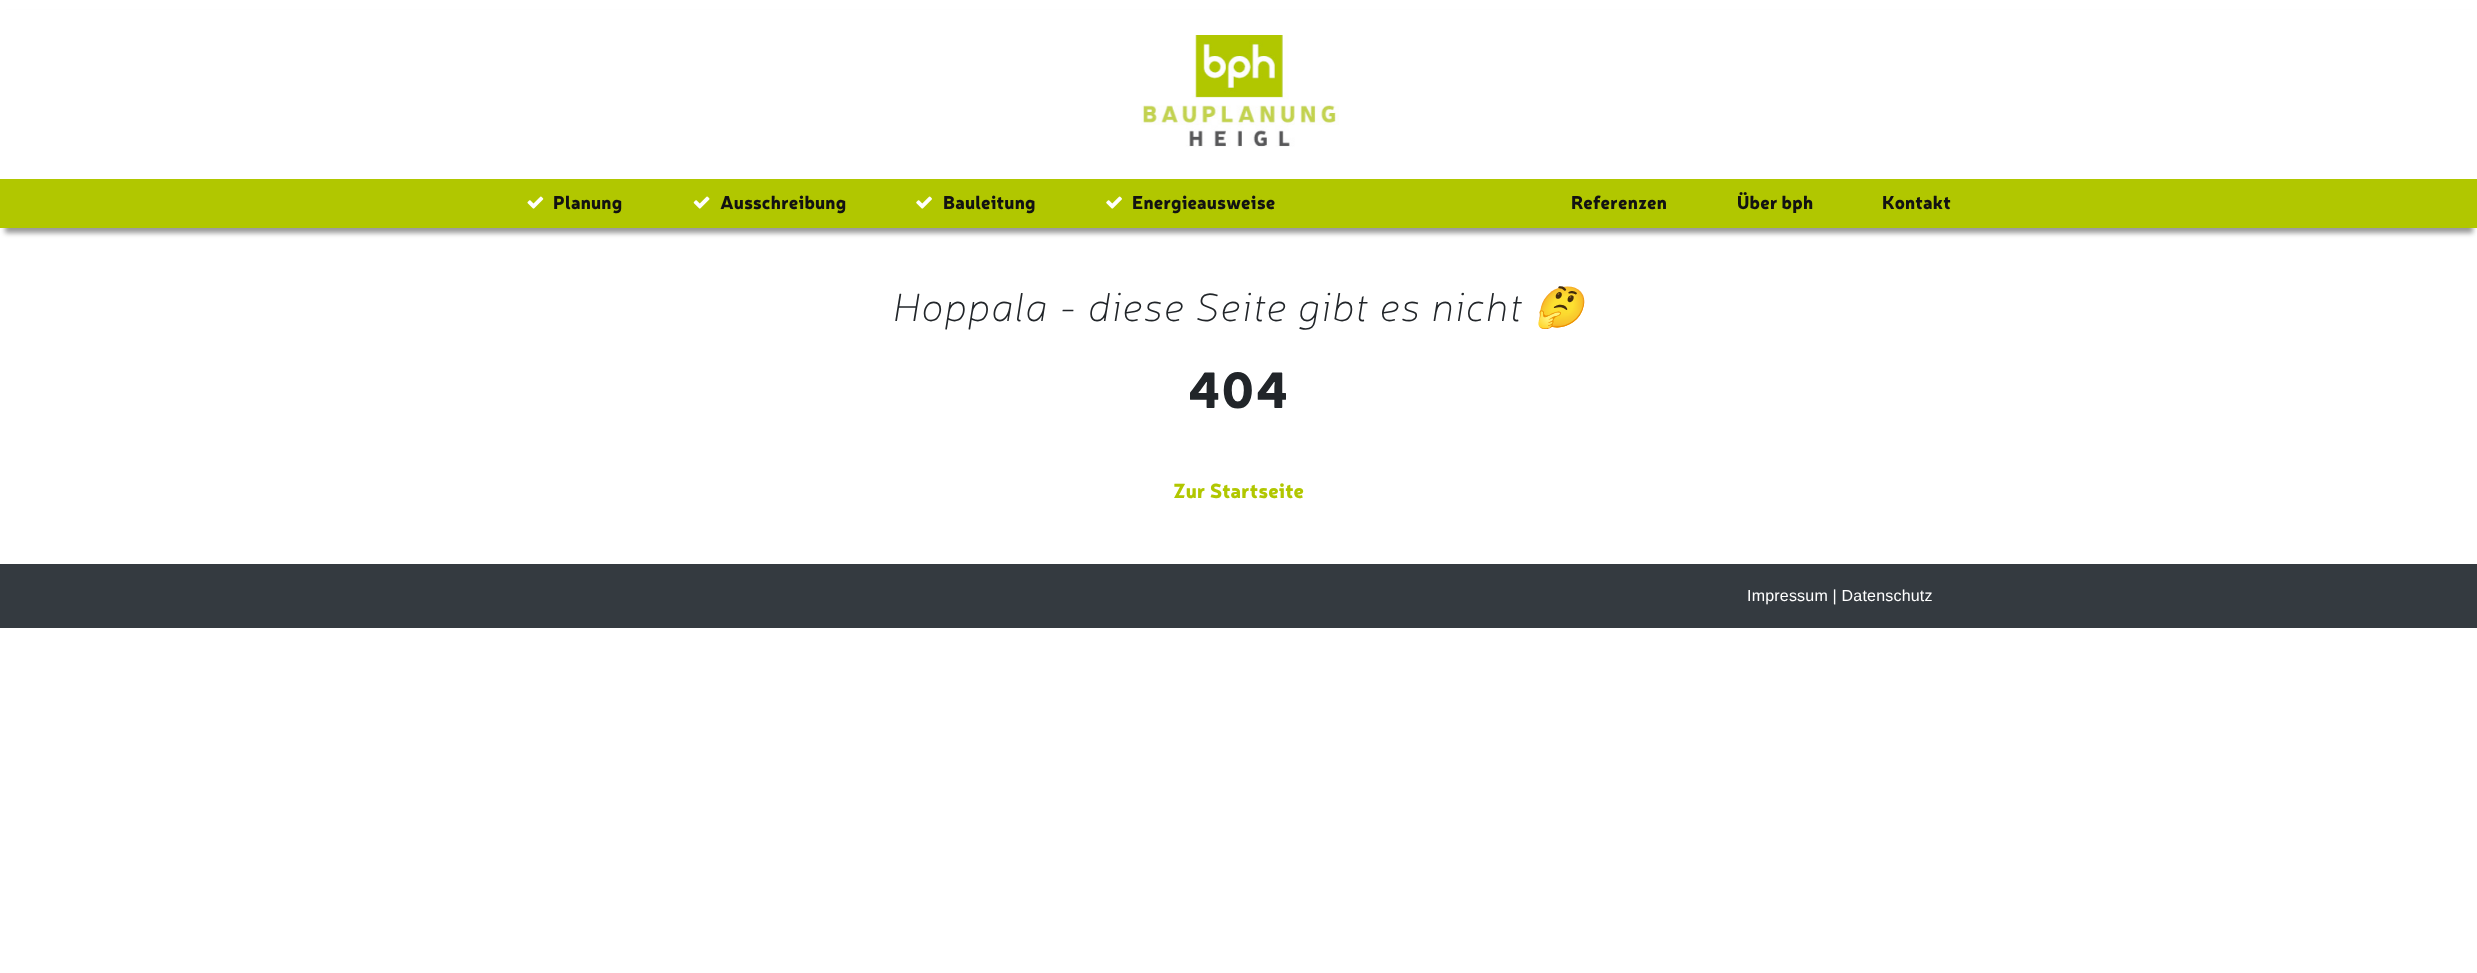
<svg xmlns="http://www.w3.org/2000/svg" width="2477" height="973" viewBox="0 0 2477 973">
  <rect width="100%" height="100%" fill="rgb(255,255,255)"/>
  <rect x="5" y="15" width="2468" height="218" fill="rgba(0,0,0,0.4)" filter="blur(2.5px)"/>
  <rect x="0" y="10" width="2477" height="169" fill="rgb(255,255,255)"/>
  <image x="1141" y="35" width="198" height="112" href="pic1.png"/>
  <rect x="0" y="179" width="2477" height="49" fill="rgb(177,199,0)"/>
  <image x="527" y="196" width="17" height="13" href="pic2.png"/>
  <text x="553" y="209" font-family="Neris" font-size="18.25" font-weight="900" letter-spacing="0.2" fill="rgb(18,18,18)">Planung</text>
  <image x="693" y="196" width="17" height="13" href="pic3.png"/>
  <text x="720" y="209" font-family="Neris" font-size="18.25" font-weight="900" letter-spacing="0.2" fill="rgb(18,18,18)">Ausschreibung</text>
  <image x="916" y="196" width="16" height="13" href="pic4.png"/>
  <text x="943" y="209" font-family="Neris" font-size="18.25" font-weight="900" letter-spacing="0.2" fill="rgb(18,18,18)">Bauleitung</text>
  <image x="1106" y="196" width="16" height="13" href="pic4.png"/>
  <g font-family="Neris" font-size="18.25" font-weight="900" letter-spacing="0.2" fill="rgb(18,18,18)">
    <text x="1132" y="209">Energieausweise</text>
    <text x="1571" y="209">Referenzen</text>
    <text x="1737" y="209">Über bph</text>
    <text x="1882" y="209">Kontakt</text>
  </g>
  <text x="893" y="321" font-family="Neris" font-size="40" font-weight="100" font-style="italic" letter-spacing="1.5" fill="rgb(33,37,41)">Hoppala - diese Seite gibt es nicht</text>
  <text x="1534" y="321" font-family="Noto Color Emoji" font-size="40" font-style="italic" letter-spacing="1.5" fill="rgb(33,37,41)">🤔</text>
  <text x="1188" y="408" font-family="Neris" font-size="50" font-weight="900" letter-spacing="1.5" fill="rgb(33,37,41)">404</text>
  <text x="1173" y="498" font-family="Neris" font-size="20" font-weight="900" letter-spacing="0.2" fill="rgb(177,199,0)">Zur Startseite</text>
  <rect x="0" y="564" width="2477" height="64" fill="rgb(52,58,64)"/>
  <text x="1747" y="601" font-family="Liberation Sans" font-size="16" letter-spacing="0.2" fill="rgb(255,255,255)">Impressum | Datenschutz</text>
</svg>
